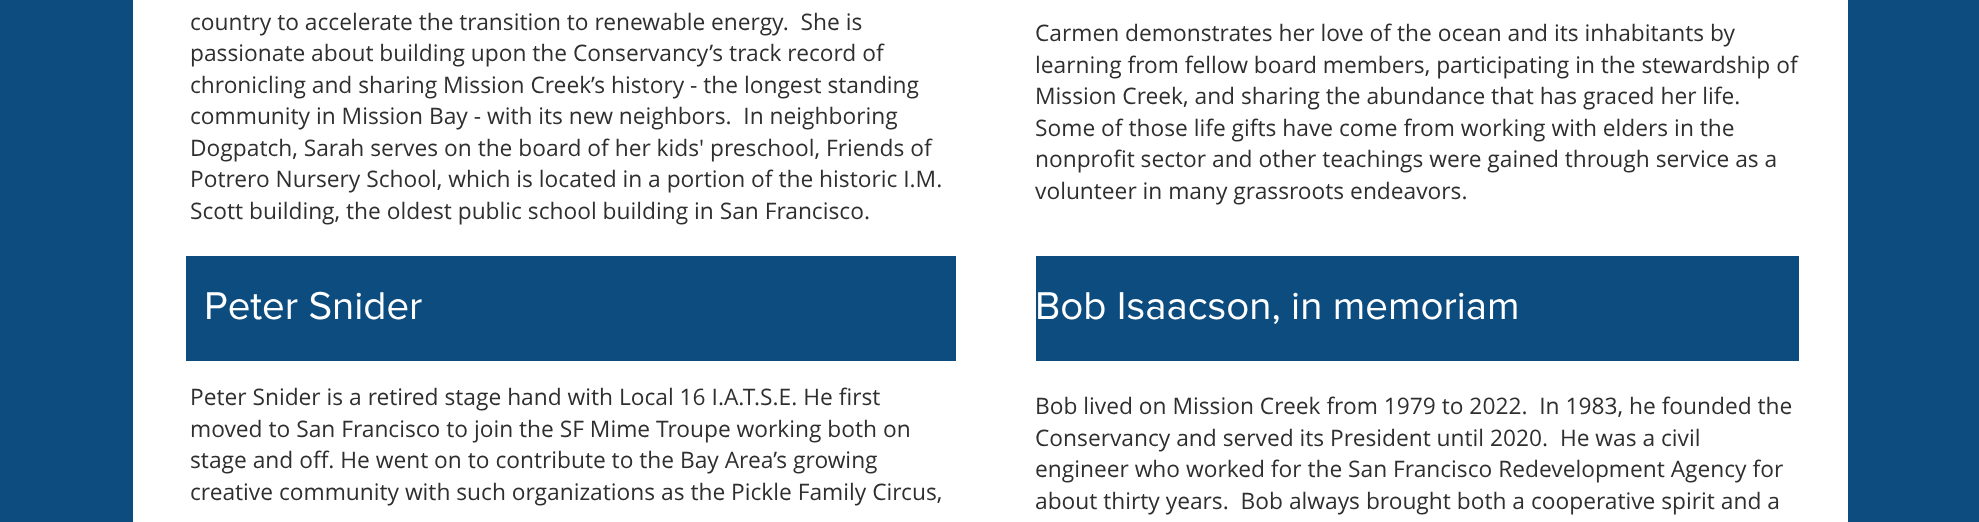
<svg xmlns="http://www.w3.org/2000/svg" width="1979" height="522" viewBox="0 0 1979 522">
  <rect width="100%" height="100%" fill="rgb(13,76,127)"/>
  <rect x="133" y="0" width="1715" height="522" fill="rgb(255,255,255)"/>
  <g font-family="Open Sans" font-size="22.75" fill="rgb(47,47,48)">
    <text xml:space="preserve"><tspan x="190" y="30">country to accelerate the transition to renewable energy.  She is</tspan><tspan x="190" y="61">passionate about building upon the Conservancy’s track record of</tspan><tspan x="190" y="93">chronicling and sharing Mission Creek’s history - the longest standing</tspan><tspan x="190" y="124">community in Mission Bay - with its new neighbors.  In neighboring</tspan><tspan x="190" y="156">Dogpatch, Sarah serves on the board of her kids' preschool, Friends of</tspan><tspan x="190" y="187">Potrero Nursery School, which is located in a portion of the historic I.M.</tspan><tspan x="190" y="219">Scott building, the oldest public school building in San Francisco.</tspan></text>
    <text>
      <tspan x="1035" y="41">Carmen demonstrates her love of the ocean and its inhabitants by</tspan>
      <tspan x="1035" y="73">learning from fellow board members, participating in the stewardship of</tspan>
      <tspan x="1035" y="104">Mission Creek, and sharing the abundance that has graced her life.</tspan>
      <tspan x="1035" y="136">Some of those life gifts have come from working with elders in the</tspan>
      <tspan x="1035" y="167">nonprofit sector and other teachings were gained through service as a</tspan>
      <tspan x="1035" y="199">volunteer in many grassroots endeavors.</tspan>
    </text>
  </g>
  <rect x="186" y="256" width="770" height="105" fill="rgb(13,76,127)"/>
  <text x="204" y="319" font-family="'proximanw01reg'" font-size="40.25" fill="rgb(255,255,255)">Peter Snider</text>
  <rect x="1036" y="256" width="763" height="105" fill="rgb(13,76,127)"/>
  <text x="1035" y="319" font-family="'proximanw01reg'" font-size="40.25" fill="rgb(255,255,255)">Bob Isaacson, in memoriam</text>
  <g font-family="Open Sans" font-size="22.75" fill="rgb(47,47,48)">
    <text>
      <tspan x="190" y="405">Peter Snider is a retired stage hand with Local 16 I.A.T.S.E. He first</tspan>
      <tspan x="190" y="437">moved to San Francisco to join the SF Mime Troupe working both on</tspan>
      <tspan x="190" y="468">stage and off. He went on to contribute to the Bay Area’s growing</tspan>
      <tspan x="190" y="500">creative community with such organizations as the Pickle Family Circus,</tspan>
    </text>
    <text xml:space="preserve"><tspan x="1035" y="414">Bob lived on Mission Creek from 1979 to 2022.  In 1983, he founded the</tspan><tspan x="1035" y="446">Conservancy and served its President until 2020.  He was a civil</tspan><tspan x="1035" y="477">engineer who worked for the San Francisco Redevelopment Agency for</tspan><tspan x="1035" y="509">about thirty years.  Bob always brought both a cooperative spirit and a</tspan></text>
  </g>
</svg>
